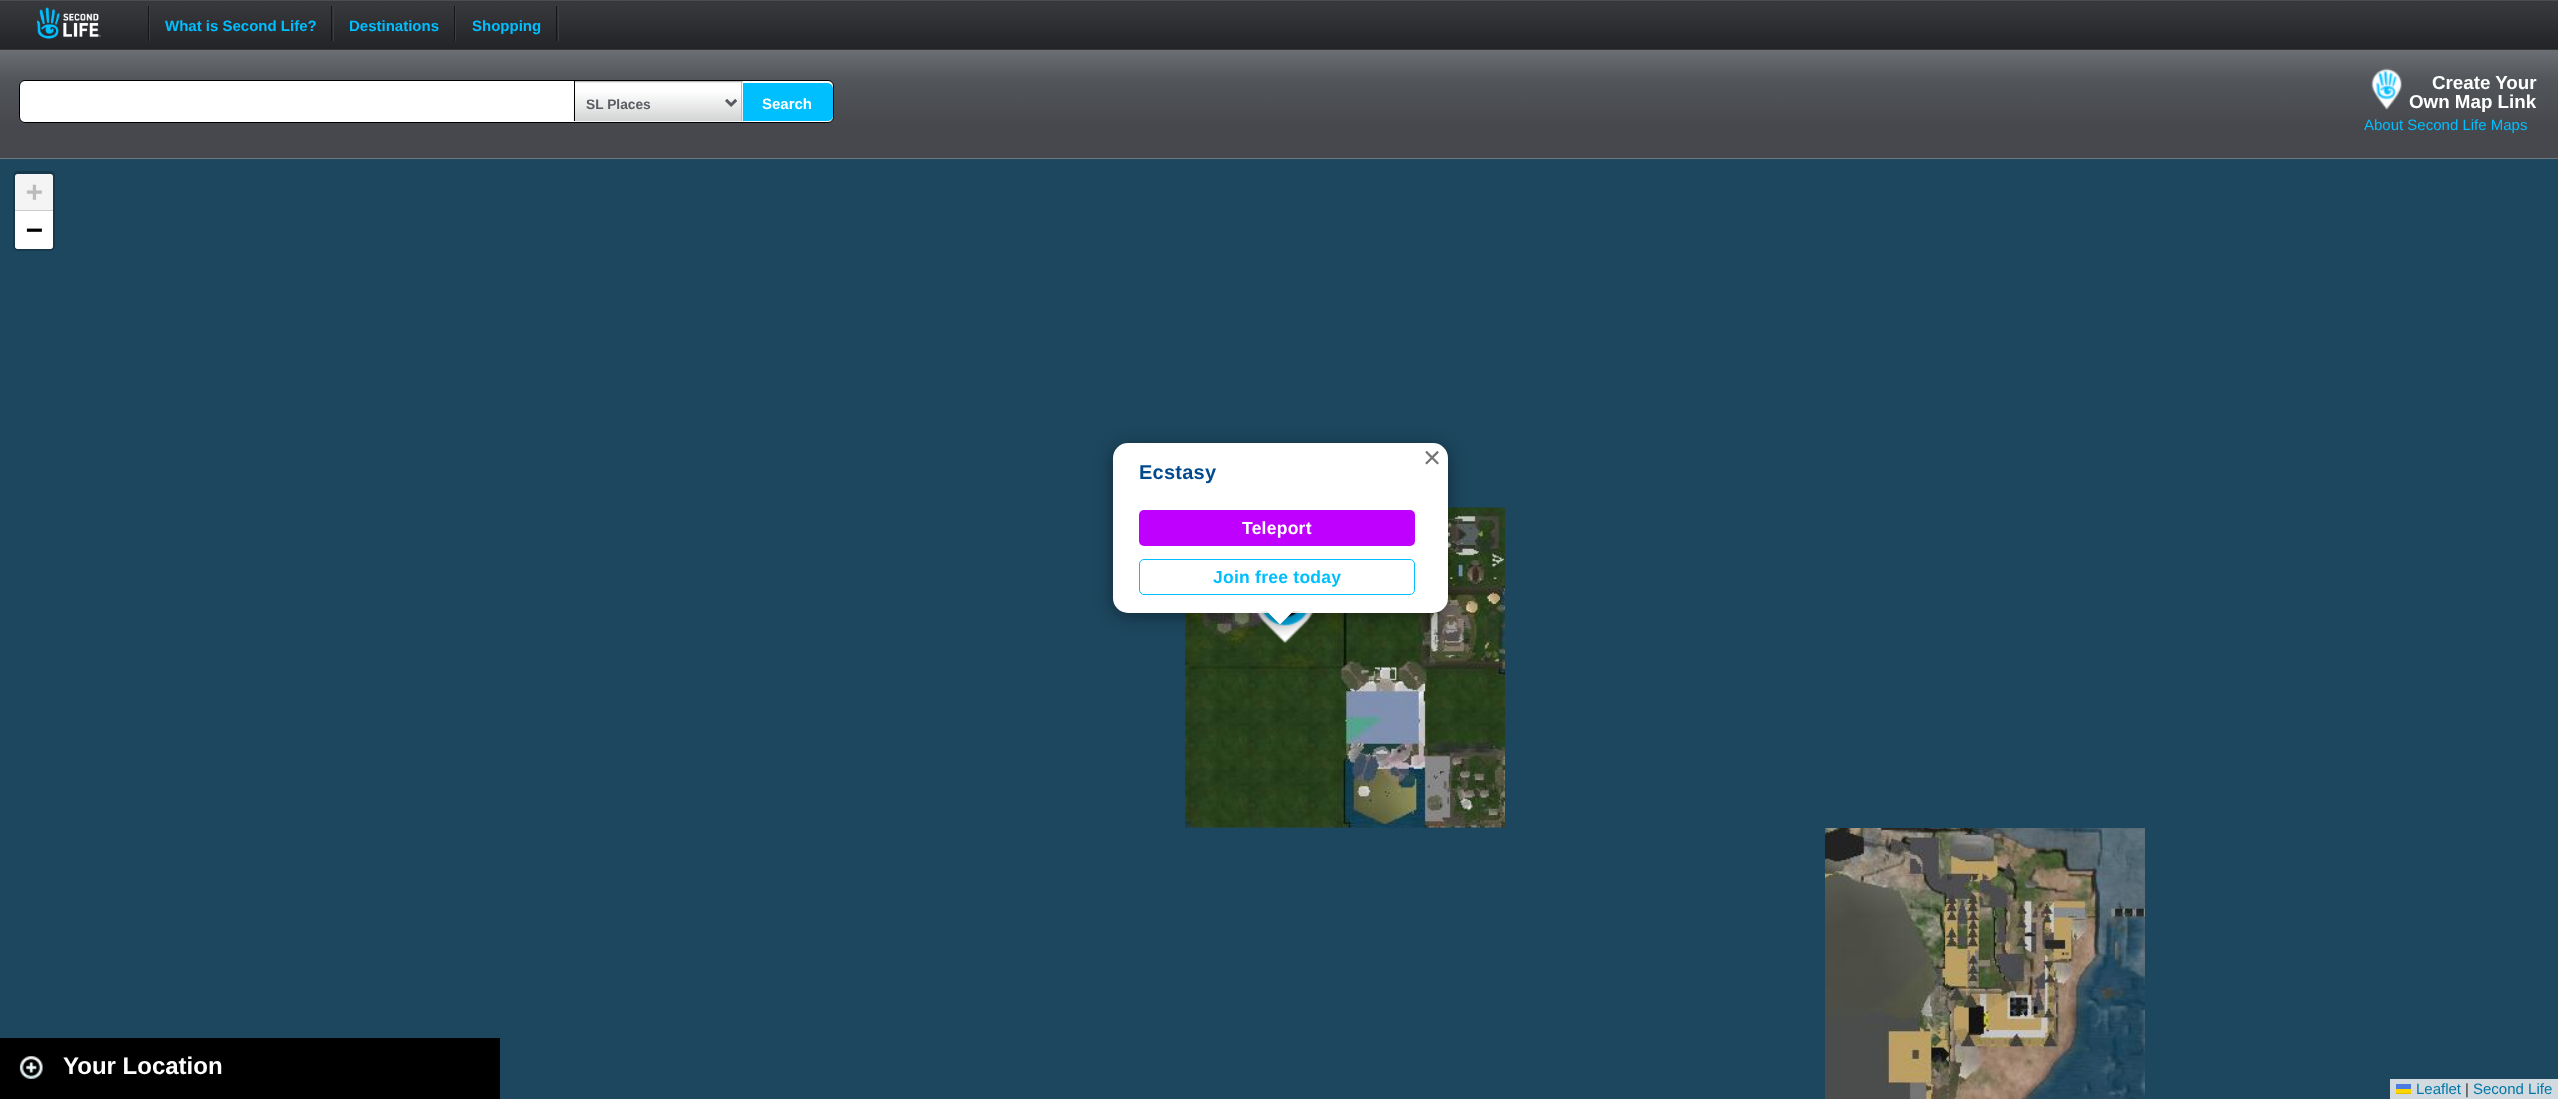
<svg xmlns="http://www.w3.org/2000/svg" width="2558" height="1099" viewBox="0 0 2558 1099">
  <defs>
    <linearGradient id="g1" gradientUnits="userSpaceOnUse" x1="0" y1="158" x2="0" y2="50"><stop offset="0.29" stop-color="rgb(71,72,77)"/><stop offset="0.71" stop-color="rgb(81,85,89)"/><stop offset="1" stop-color="rgb(107,110,115)"/></linearGradient>
    <clipPath id="clip1"><rect x="20" y="81" width="813" height="40" rx="5"/></clipPath>
    <clipPath id="clip2"><rect x="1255" y="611" width="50" height="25"/></clipPath>
    <clipPath id="clip3"><rect x="1255" y="611" width="50" height="25"/></clipPath>
  </defs>
  <rect width="100%" height="100%" fill="rgb(255,255,255)"/>
  <image x="0" y="0" width="2558" height="50" href="pic1.png"/>
  <image x="37" y="7" width="64" height="32" href="pic2.png"/>
  <rect x="149" y="6" width="1" height="35" fill="rgb(58,62,66)"/>
  <rect x="148" y="6" width="1" height="35" fill="rgb(22,22,22)"/>
  <text x="165" y="31" font-family="Liberation Sans" font-size="15" font-weight="bold" fill="rgb(0,191,255)">What is Second Life?</text>
  <rect x="333" y="6" width="1" height="35" fill="rgb(58,62,66)"/>
  <rect x="331" y="6" width="1" height="35" fill="rgb(22,22,22)"/>
  <text x="349" y="31" font-family="Liberation Sans" font-size="15" font-weight="bold" fill="rgb(0,191,255)">Destinations</text>
  <rect x="455" y="6" width="1" height="35" fill="rgb(58,62,66)"/>
  <rect x="454" y="6" width="1" height="35" fill="rgb(22,22,22)"/>
  <text x="472" y="31" font-family="Liberation Sans" font-size="15" font-weight="bold" fill="rgb(0,191,255)">Shopping</text>
  <rect x="558" y="6" width="1" height="35" fill="rgb(58,62,66)"/>
  <rect x="556" y="6" width="1" height="35" fill="rgb(22,22,22)"/>
  <rect x="0" y="50" width="2558" height="108" fill="url(#g1)"/>
  <rect x="0" y="158" width="2558" height="1" fill="rgb(114,119,126)"/>
  <rect x="19.5" y="80.5" width="814" height="42" rx="5.5" fill="rgb(255,255,255)" stroke="rgb(0,0,0)"/>
  <image x="573" y="81" width="170" height="41" href="pic3.png"/>
  <rect x="574" y="81" width="169" height="1" fill="rgb(187,187,187)"/>
  <rect x="741" y="81" width="1" height="40" fill="rgb(187,187,187)"/>
  <rect x="574" y="81" width="1" height="40" fill="rgb(0,0,0)"/>
  <path d="M726 100L731 105L736 100" fill="none" stroke="rgb(89,92,98)" stroke-width="2.5"/>
  <text x="586" y="109" font-family="Liberation Sans" font-size="13.75" font-weight="bold" fill="rgb(89,92,98)">SL Places</text>
  <g clip-path="url(#clip1)">
    <path d="M743 83H827C830.5 83 833 85.5 833 89V119C833 122.5 830.5 125 827 125H743Z" fill="rgb(0,191,255)"/>
  </g>
  <text x="762" y="109" font-family="Liberation Sans" font-size="15" font-weight="bold" fill="rgb(255,255,255)">Search</text>
  <image x="2371" y="68" width="31" height="42" href="pic4.png"/>
  <g font-family="Liberation Sans" font-size="18.75" font-weight="bold" fill="rgb(255,255,255)">
    <text x="2432" y="89">Create Your</text>
    <text x="2409" y="108">Own Map Link</text>
  </g>
  <text x="2364" y="130" font-family="Liberation Sans" font-size="15" fill="rgb(0,191,255)">About Second Life Maps</text>
  <rect x="0" y="159" width="2558" height="940" fill="rgb(29,71,95)"/>
  <rect x="14.5" y="172.5" width="39" height="77" rx="3.5" fill="none" stroke="rgb(23,57,76)" stroke-width="3"/>
  <path d="M17.5 174H50.5C52 174 53 175 53 176.5V211H15V176.5C15 175 16 174 17.5 174Z" fill="rgb(244,244,244)"/>
  <rect x="15" y="210" width="38" height="1" fill="rgb(204,204,204)"/>
  <text x="26" y="201" font-family="DejaVu Sans Mono" font-size="28" font-weight="bold" fill="rgb(187,187,187)">+</text>
  <path d="M15 211H53V246.5C53 248 52 249 50.5 249H17.5C16 249 15 248 15 246.5Z" fill="rgb(255,255,255)"/>
  <text x="26" y="239" font-family="DejaVu Sans Mono" font-size="28" font-weight="bold" fill="rgb(0,0,0)">−</text>
  <rect x="2390" y="1079" width="168" height="20" fill="rgb(210,218,223)"/>
  <text x="2416" y="1094" font-family="Liberation Sans" font-size="15" fill="rgb(0,120,168)">Leaflet</text>
  <rect x="2396" y="1084" width="15" height="5" fill="rgb(76,123,225)"/>
  <rect x="2396" y="1089" width="15" height="4" fill="rgb(255,213,0)"/>
  <rect x="2396" y="1093" width="15" height="1" fill="rgb(224,188,0)"/>
  <text x="2465" y="1094" font-family="Liberation Sans" font-size="15" fill="rgb(51,51,51)">|</text>
  <text x="2473" y="1094" font-family="Liberation Sans" font-size="15" fill="rgb(0,120,168)">Second Life</text>
  <image x="1185" y="507" width="320" height="321" href="pic5.png"/>
  <image x="1257" y="613" width="57" height="30" href="pic7.png"/>
  <rect x="1113" y="446" width="335" height="170" rx="15" fill="rgba(0,0,0,0.4)" filter="blur(9px)"/>
  <rect x="1113" y="443" width="335" height="170" rx="15" fill="rgb(255,255,255)"/>
  <text x="1423" y="468" font-family="Liberation Sans" font-size="31" fill="rgb(117,117,117)">×</text>
  <text x="1139" y="479" font-family="Liberation Sans" font-size="20" font-weight="bold" letter-spacing="0.25" fill="rgb(1,74,142)">Ecstasy</text>
  <rect x="1139" y="510" width="276" height="36" rx="5" fill="rgb(191,0,255)"/>
  <text x="1242" y="534" font-family="Liberation Sans" font-size="17.5" font-weight="bold" letter-spacing="0.25" fill="rgb(255,255,255)">Teleport</text>
  <rect x="1139.5" y="559.5" width="275" height="35" rx="4.5" fill="none" stroke="rgb(0,191,255)"/>
  <text x="1213" y="583" font-family="Liberation Sans" font-size="17.5" font-weight="bold" letter-spacing="0.25" fill="rgb(0,191,255)">Join free today</text>
  <g clip-path="url(#clip2)">
    <rect x="1270" y="603" width="21" height="21" fill="rgba(0,0,0,0.4)" filter="blur(9px)"/>
  </g>
  <g clip-path="url(#clip3)">
    <path d="M1280 594.5L1295 609.5L1280 624.5L1265 609.5Z" fill="rgb(255,255,255)"/>
  </g>
  <image x="1825" y="828" width="320" height="271" href="pic6.png"/>
  <rect x="0" y="1038" width="500" height="61" fill="rgb(0,0,0)"/>
  <image x="19" y="1056" width="24" height="23" href="pic8.png"/>
  <text x="63" y="1074" font-family="Liberation Sans" font-size="24" font-weight="bold" fill="rgb(255,255,255)">Your Location</text>
</svg>
